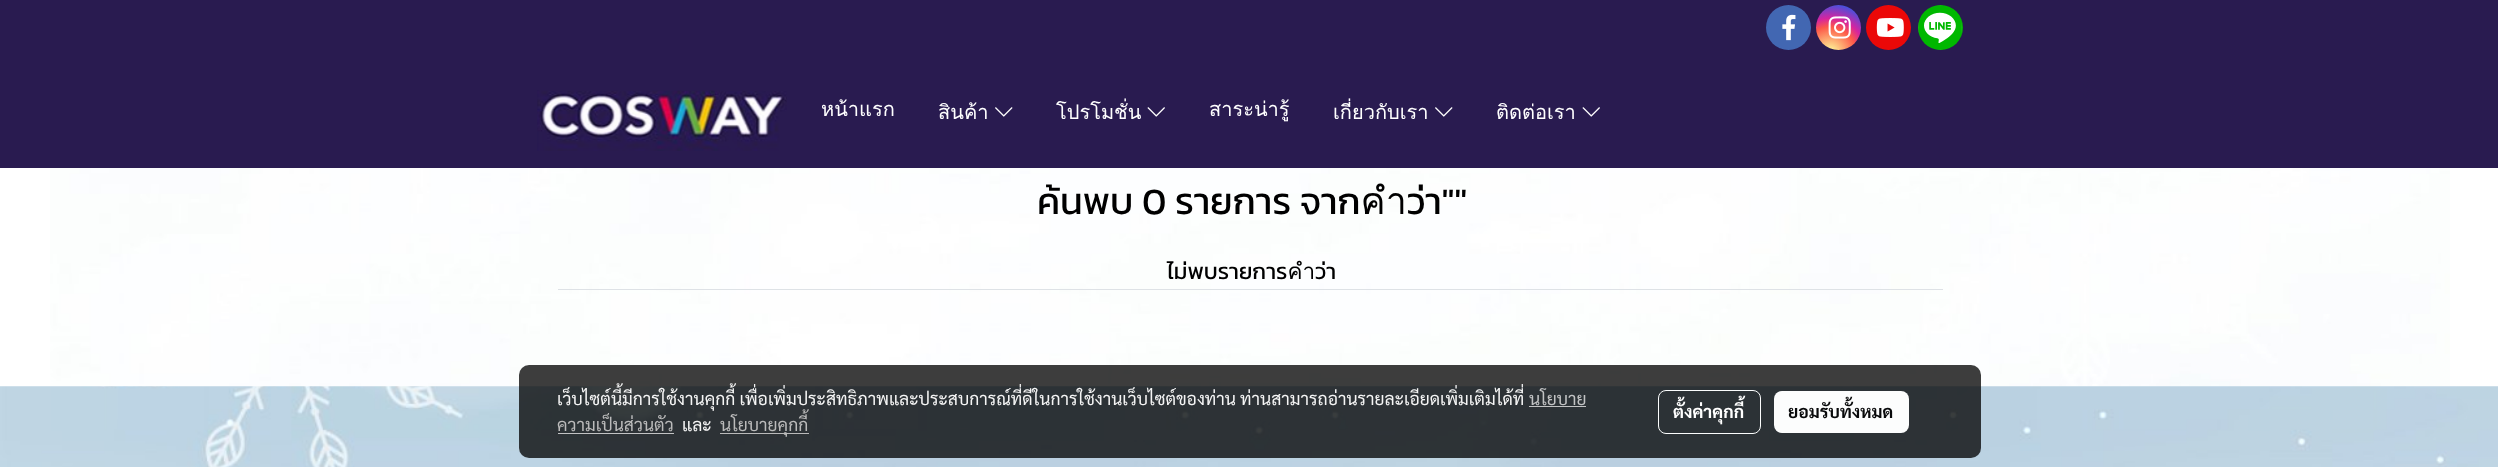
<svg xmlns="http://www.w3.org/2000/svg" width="2498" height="467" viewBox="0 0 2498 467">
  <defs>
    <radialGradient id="g1" gradientUnits="userSpaceOnUse" cx="1830" cy="53" r="58"><stop offset="0" stop-color="rgb(253,244,151)"/><stop offset="0.05" stop-color="rgb(253,244,151)"/><stop offset="0.45" stop-color="rgb(253,89,73)"/><stop offset="0.6" stop-color="rgb(214,36,159)"/><stop offset="0.9" stop-color="rgb(40,90,235)"/></radialGradient>
  </defs>
  <rect width="100%" height="100%" fill="rgb(255,255,255)"/>
  <image x="50" y="168" width="2400" height="219" href="pic1.png"/>
  <rect x="0" y="0" width="2498" height="168" fill="rgb(41,27,80)"/>
  <circle cx="1788.5" cy="27.5" r="22.5" fill="rgb(66,103,178)"/>
  <image x="1782" y="14" width="14" height="27" href="pic2.png"/>
  <circle cx="1838.5" cy="27.5" r="22.5" fill="url(#g1)"/>
  <image x="1828" y="16" width="23" height="23" href="pic3.png"/>
  <circle cx="1888.5" cy="27.5" r="22.5" fill="rgb(235,8,8)"/>
  <image x="1876" y="18" width="28" height="19" href="pic4.png"/>
  <circle cx="1940.5" cy="27.5" r="22.5" fill="rgb(0,184,0)"/>
  <image x="1918" y="5" width="44" height="45" href="pic5.png"/>
  <image x="537" y="90" width="250" height="61" href="pic6.png"/>
  <g font-family="Loma" font-size="20" fill="rgb(255,255,255)">
    <text x="821" y="116">หน้าแรก</text>
    <text x="938" y="119">สินค้า</text>
  </g>
  <image x="995" y="107" width="18" height="10" href="pic7.png"/>
  <text x="1056" y="119" font-family="Loma" font-size="20" fill="rgb(255,255,255)">โปรโมชั่น</text>
  <image x="1147" y="107" width="18" height="10" href="pic8.png"/>
  <g font-family="Loma" font-size="20" fill="rgb(255,255,255)">
    <text x="1209" y="116">สาระน่ารู้</text>
    <text x="1333" y="119">เกี่ยวกับเรา</text>
  </g>
  <image x="1435" y="107" width="18" height="10" href="pic7.png"/>
  <text x="1496" y="119" font-family="Loma" font-size="20" fill="rgb(255,255,255)">ติดต่อเรา</text>
  <image x="1582" y="107" width="18" height="10" href="pic8.png"/>
  <text x="1037" y="214" font-family="Kanit" font-size="37.5" fill="rgb(0,0,0)">ค้นพบ 0 รายการ จากคำว่า""</text>
  <rect x="558" y="289" width="1385" height="1" fill="rgb(222,226,230)"/>
  <text x="1167" y="279" font-family="Kanit" font-size="22.5" fill="rgb(0,0,0)">ไม่พบรายการคำว่า</text>
  <image x="0" y="386" width="2498" height="81" href="pic9.png"/>
  <rect x="519" y="365" width="1462" height="93" rx="10" fill="rgba(0,0,0,0.76)"/>
  <g font-family="Sarabun" font-size="17.5" fill="rgb(245,245,245)">
    <text x="557" y="405">เว็บไซต์นี้มีการใช้งานคุกกี้ เพื่อเพิ่มประสิทธิภาพและประสบการณ์ที่ดีในการใช้งานเว็บไซต์ของท่าน</text>
    <text x="1240" y="405">ท่านสามารถอ่านรายละเอียดเพิ่มเติมได้ที่</text>
  </g>
  <text x="1529" y="405" font-family="Sarabun" font-size="17.5" fill="rgb(194,195,196)">นโยบาย</text>
  <rect x="1529" y="406" width="57" height="1" fill="rgb(194,195,196)"/>
  <text x="557" y="431" font-family="Sarabun" font-size="17.5" fill="rgb(187,187,187)">ความเป็นส่วนตัว</text>
  <rect x="558" y="433" width="116" height="1" fill="rgb(194,195,196)"/>
  <text x="682" y="431" font-family="Sarabun" font-size="17.5" fill="rgb(245,245,245)">และ</text>
  <rect x="720" y="433" width="89" height="1" fill="rgba(194,194,194,0.95)"/>
  <text x="720" y="431" font-family="Sarabun" font-size="17.5" fill="rgb(187,187,187)">นโยบายคุกกี้</text>
  <rect x="1658.5" y="390.5" width="102" height="43" rx="7.5" fill="none" stroke="rgb(251,253,253)"/>
  <text x="1673" y="418" font-family="Sarabun" font-size="17.5" font-weight="bold" fill="rgb(255,255,255)">ตั้งค่าคุกกี้</text>
  <rect x="1774" y="391" width="135" height="42" rx="8" fill="rgb(252,253,253)"/>
  <text x="1788" y="418" font-family="Sarabun" font-size="17.5" font-weight="bold" fill="rgb(9,10,11)">ยอมรับทั้งหมด</text>
</svg>
